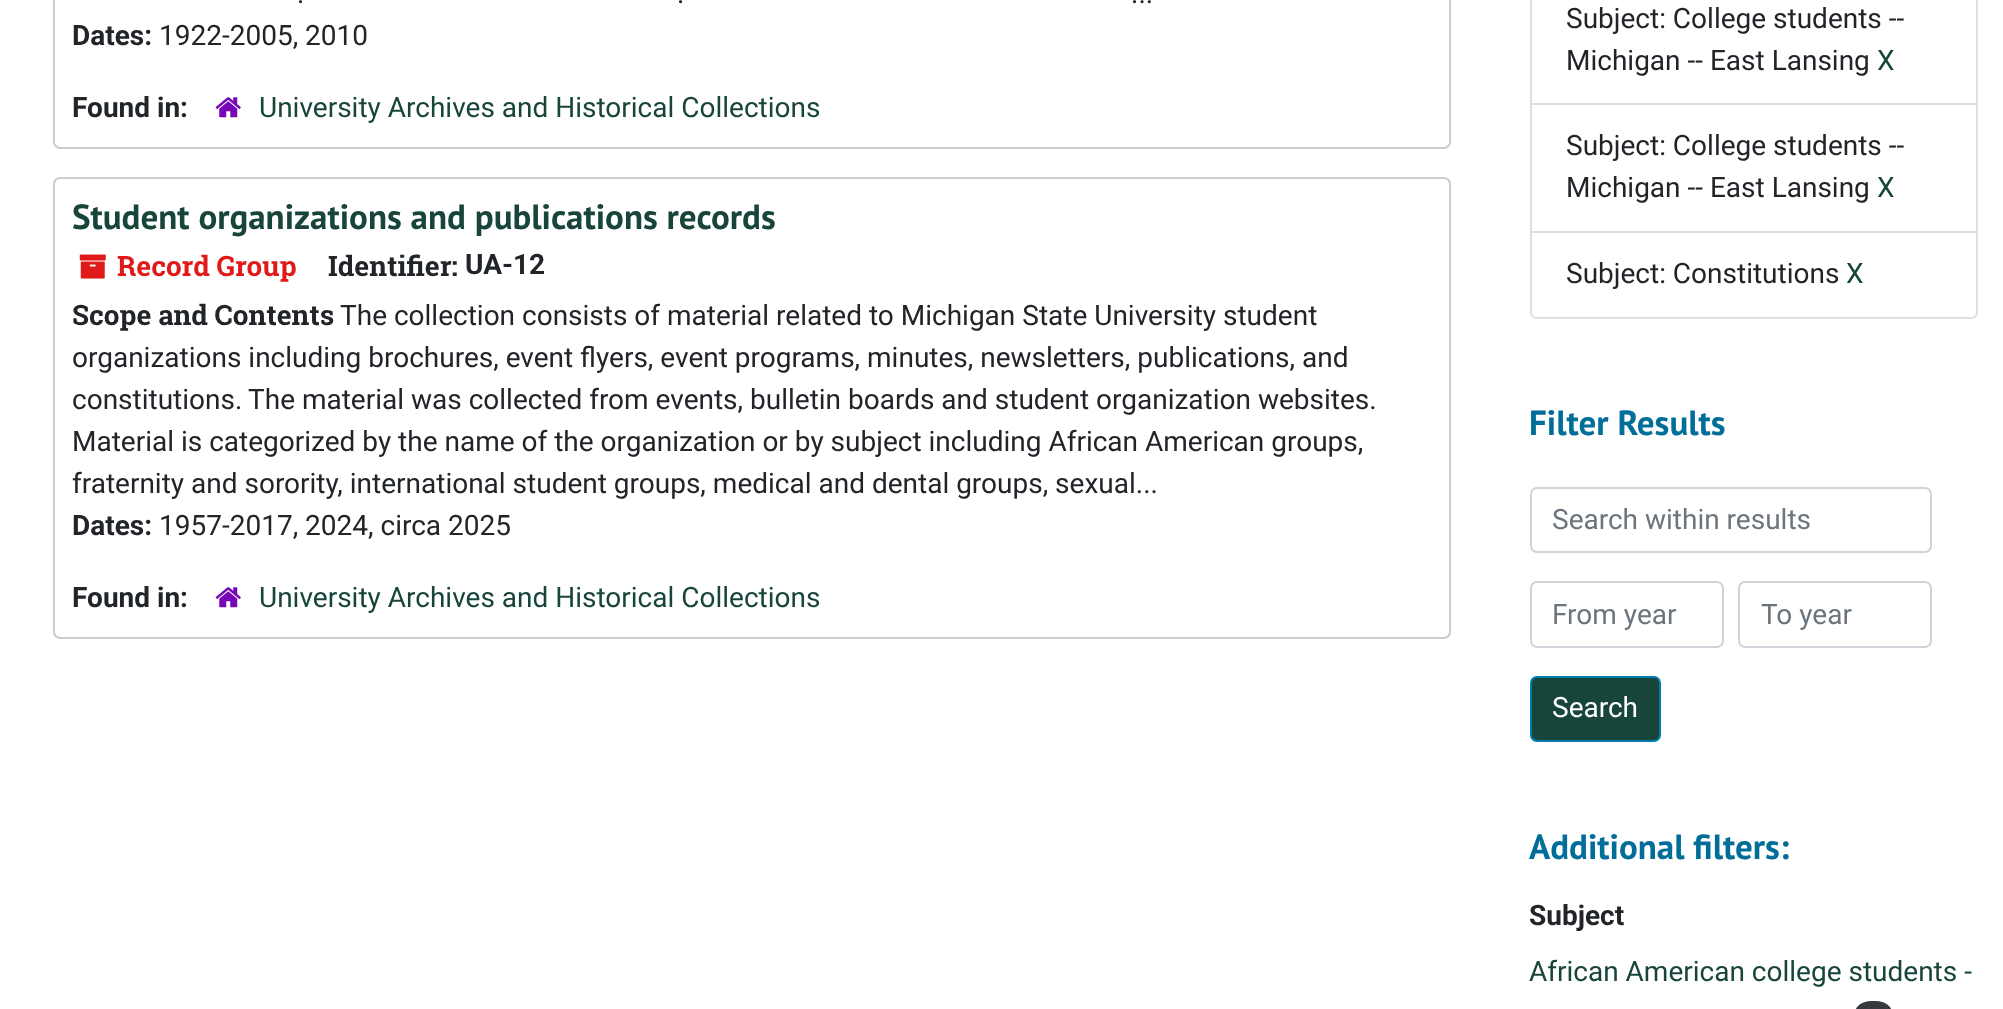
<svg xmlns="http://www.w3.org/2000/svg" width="2003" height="1009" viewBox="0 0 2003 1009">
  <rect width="100%" height="100%" fill="rgb(255,255,255)"/>
  <rect x="54" y="-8" width="1396" height="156" rx="6" fill="none" stroke="rgb(204,204,204)" stroke-width="2"/>
  <g font-family="Roboto" font-size="28" fill="rgb(33,37,41)">
    <text x="297" y="3">.</text>
    <text x="677" y="3">.</text>
    <text x="1131" y="3">...</text>
  </g>
  <text x="72" y="45" font-family="Roboto" font-size="28" font-weight="bold" fill="rgb(33,37,41)">Dates:</text>
  <text x="159" y="45" font-family="Roboto" font-size="28" fill="rgb(33,37,41)">1922-2005, 2010</text>
  <text x="72" y="117" font-family="Roboto" font-size="28" font-weight="bold" fill="rgb(33,37,41)">Found in:</text>
  <image x="215" y="97" width="26" height="21" href="pic1.png"/>
  <text x="259" y="117" font-family="Roboto" font-size="28" fill="rgb(24,69,59)">University Archives and Historical Collections</text>
  <rect x="54" y="178" width="1396" height="460" rx="6" fill="none" stroke="rgb(204,204,204)" stroke-width="2"/>
  <text x="72" y="229" font-family="PT Sans" font-size="35" font-weight="bold" fill="rgb(24,69,59)">Student organizations and publications records</text>
  <image x="79" y="254" width="27" height="25" href="pic2.png"/>
  <text x="117" y="276" font-family="Roboto Slab" font-size="28" font-weight="bold" fill="rgb(224,25,25)">Record Group</text>
  <text x="328" y="276" font-family="Roboto Slab" font-size="28" font-weight="bold" fill="rgb(33,37,41)">Identifier:</text>
  <text x="465" y="274" font-family="Roboto" font-size="28" font-weight="bold" fill="rgb(33,37,41)">UA-12</text>
  <text x="72" y="325" font-family="Roboto Slab" font-size="28" font-weight="bold" fill="rgb(33,37,41)">Scope and Contents</text>
  <g font-family="Roboto" font-size="28" fill="rgb(33,37,41)">
    <text x="340" y="325">The collection consists of material related to Michigan State University student</text>
    <text>
      <tspan x="72" y="367">organizations including brochures, event flyers, event programs, minutes, newsletters, publications, and</tspan>
      <tspan x="72" y="409">constitutions.</tspan>
    </text>
    <text x="248" y="409">The material was collected from events, bulletin boards and student organization websites.</text>
    <text>
      <tspan x="72" y="451">Material is categorized by the name of the organization or by subject including African American groups,</tspan>
      <tspan x="72" y="493">fraternity and sorority, international student groups, medical and dental groups, sexual...</tspan>
    </text>
  </g>
  <text x="72" y="535" font-family="Roboto" font-size="28" font-weight="bold" fill="rgb(33,37,41)">Dates:</text>
  <text x="159" y="535" font-family="Roboto" font-size="28" fill="rgb(33,37,41)">1957-2017, 2024, circa 2025</text>
  <text x="72" y="607" font-family="Roboto" font-size="28" font-weight="bold" fill="rgb(33,37,41)">Found in:</text>
  <image x="215" y="587" width="26" height="21" href="pic1.png"/>
  <text x="259" y="607" font-family="Roboto" font-size="28" fill="rgb(24,69,59)">University Archives and Historical Collections</text>
  <rect x="1531" y="-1" width="446" height="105" fill="none" stroke="rgb(223,223,223)" stroke-width="2"/>
  <g font-family="Roboto" font-size="28" fill="rgb(33,37,41)">
    <text>
      <tspan x="1566" y="28">Subject: College students --</tspan>
      <tspan x="1566" y="70">Michigan -- East Lansing</tspan>
    </text>
  </g>
  <text x="1877" y="70" font-family="Roboto" font-size="28" fill="rgb(24,69,59)">X</text>
  <rect x="1531" y="104" width="446" height="128" fill="none" stroke="rgb(223,223,223)" stroke-width="2"/>
  <g font-family="Roboto" font-size="28" fill="rgb(33,37,41)">
    <text>
      <tspan x="1566" y="155">Subject: College students --</tspan>
      <tspan x="1566" y="197">Michigan -- East Lansing</tspan>
    </text>
  </g>
  <text x="1877" y="197" font-family="Roboto" font-size="28" fill="rgb(24,69,59)">X</text>
  <path d="M1531 232H1977V312C1977 315.5 1974.5 318 1971 318H1537C1533.5 318 1531 315.5 1531 312Z" fill="rgb(255,255,255)" stroke="rgb(223,223,223)" stroke-width="2"/>
  <text x="1566" y="283" font-family="Roboto" font-size="28" fill="rgb(33,37,41)">Subject: Constitutions</text>
  <text x="1846" y="283" font-family="Roboto" font-size="28" fill="rgb(24,69,59)">X</text>
  <text x="1529" y="435" font-family="PT Sans" font-size="35" font-weight="bold" fill="rgb(0,110,153)">Filter Results</text>
  <rect x="1531" y="488" width="400" height="64" rx="6" fill="none" stroke="rgb(206,212,218)" stroke-width="2"/>
  <text x="1552" y="529" font-family="Roboto" font-size="28" fill="rgb(108,117,125)">Search within results</text>
  <rect x="1531" y="582" width="192" height="65" rx="6" fill="none" stroke="rgb(206,212,218)" stroke-width="2"/>
  <text x="1552" y="624" font-family="Roboto" font-size="28" fill="rgb(108,117,125)">From year</text>
  <rect x="1739" y="582" width="192" height="65" rx="6" fill="none" stroke="rgb(206,212,218)" stroke-width="2"/>
  <text x="1761" y="624" font-family="Roboto" font-size="28" fill="rgb(108,117,125)">To year</text>
  <rect x="1531" y="677" width="129" height="64" rx="6" fill="rgb(24,69,59)" stroke="rgb(0,124,173)" stroke-width="2"/>
  <text x="1552" y="717" font-family="Roboto" font-size="28" fill="rgb(255,255,255)">Search</text>
  <text x="1529" y="859" font-family="PT Sans" font-size="35" font-weight="bold" fill="rgb(0,110,153)">Additional filters:</text>
  <text x="1529" y="925" font-family="Roboto" font-size="28" font-weight="bold" fill="rgb(33,37,41)">Subject</text>
  <text x="1529" y="981" font-family="Roboto" font-size="28" fill="rgb(24,69,59)">African American college students -</text>
  <rect x="1855" y="1001" width="37" height="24" rx="16" fill="rgb(52,58,64)"/>
</svg>
